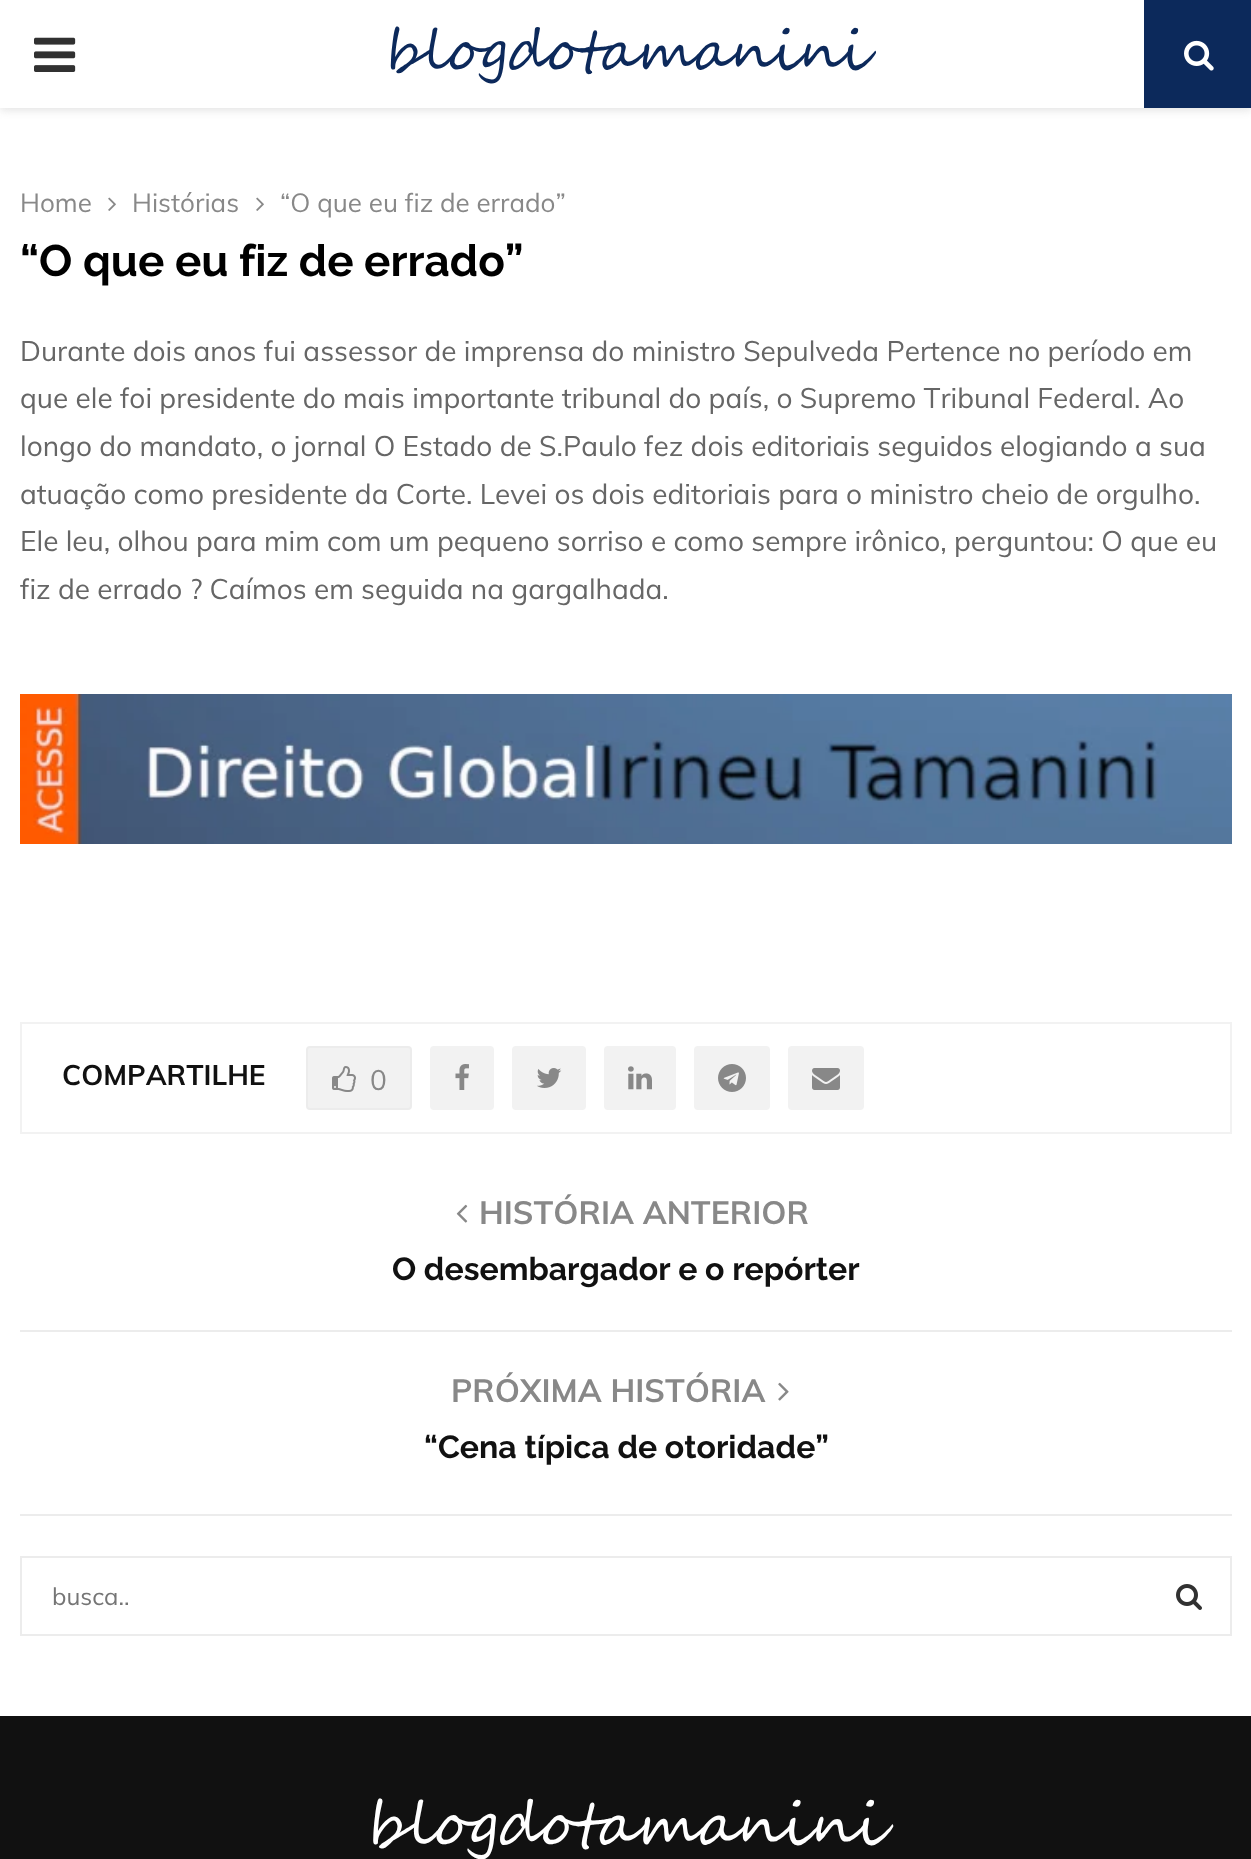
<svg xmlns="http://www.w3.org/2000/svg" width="1251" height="1859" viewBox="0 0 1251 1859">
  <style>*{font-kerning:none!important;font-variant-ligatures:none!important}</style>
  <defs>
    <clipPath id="clip1"><rect x="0" y="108" width="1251" height="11"/></clipPath>
  </defs>
  <rect width="100%" height="100%" fill="rgb(255,255,255)"/>
  <g clip-path="url(#clip1)">
    <rect x="0" y="2" width="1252" height="108" fill="rgba(190,190,190,0.46)" filter="blur(5px)"/>
  </g>
  <image x="34" y="37" width="42" height="35" href="pic1.png"/>
  <text x="385" y="70" font-family="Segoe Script" font-size="56" fill="rgb(12,41,91)">blogdotamanini</text>
  <rect x="1144" y="0" width="107" height="108" fill="rgb(12,41,91)"/>
  <image x="1184" y="40" width="30" height="31" href="pic2.png"/>
  <text x="20" y="212" font-family="Muli" font-size="26" fill="rgb(136,136,136)">Home</text>
  <image x="108" y="197" width="8" height="14" href="pic3.png"/>
  <text x="132" y="212" font-family="Muli" font-size="26" fill="rgb(136,136,136)">Histórias</text>
  <image x="256" y="197" width="8" height="14" href="pic3.png"/>
  <text x="280" y="212" font-family="Muli" font-size="26" fill="rgb(136,136,136)">“O que eu fiz de errado”</text>
  <text x="20" y="276" font-family="Raleway" font-size="44" font-weight="bold" fill="rgb(0,0,0)">“O que eu fiz de errado”</text>
  <g font-family="Muli" font-size="28" fill="rgb(102,102,102)">
    <text>
      <tspan x="20" y="361">Durante dois anos fui assessor de imprensa do ministro Sepulveda Pertence no período em</tspan>
      <tspan x="20" y="408">que ele foi presidente do mais importante tribunal do país, o Supremo Tribunal Federal. Ao</tspan>
      <tspan x="20" y="456">longo do mandato, o jornal O Estado de S.Paulo fez dois editoriais seguidos elogiando a sua</tspan>
      <tspan x="20" y="504">atuação como presidente da Corte. Levei os dois editoriais para o ministro cheio de orgulho.</tspan>
      <tspan x="20" y="551">Ele leu, olhou para mim com um pequeno sorriso e como sempre irônico, perguntou: O que eu</tspan>
      <tspan x="20" y="599">fiz de errado ? Caímos em seguida na gargalhada.</tspan>
    </text>
  </g>
  <image x="20" y="694" width="1212" height="150" href="pic4.png"/>
  <rect x="21" y="1023" width="1210" height="110" fill="none" stroke="rgb(242,242,242)" stroke-width="2"/>
  <text x="62" y="1085" font-family="Muli" font-size="28" font-weight="bold" fill="rgb(17,17,17)">COMPARTILHE</text>
  <rect x="307" y="1047" width="104" height="62" rx="3" fill="rgb(242,242,242)" stroke="rgb(236,236,236)" stroke-width="2"/>
  <image x="332" y="1066" width="24" height="26" href="pic5.png"/>
  <text x="370" y="1090" font-family="Muli" font-size="28" fill="rgb(136,136,136)">0</text>
  <rect x="430" y="1046" width="64" height="64" rx="4" fill="rgb(242,242,242)"/>
  <image x="455" y="1064" width="14" height="26" href="pic6.png"/>
  <rect x="512" y="1046" width="74" height="64" rx="4" fill="rgb(242,242,242)"/>
  <image x="537" y="1068" width="25" height="20" href="pic7.png"/>
  <rect x="604" y="1046" width="72" height="64" rx="4" fill="rgb(242,242,242)"/>
  <image x="628" y="1066" width="24" height="24" href="pic8.png"/>
  <rect x="694" y="1046" width="76" height="64" rx="4" fill="rgb(242,242,242)"/>
  <image x="718" y="1064" width="28" height="28" href="pic9.png"/>
  <rect x="788" y="1046" width="76" height="64" rx="4" fill="rgb(242,242,242)"/>
  <image x="812" y="1068" width="28" height="22" href="pic10.png"/>
  <rect x="20" y="1514" width="1212" height="2" fill="rgb(236,236,236)"/>
  <image x="456" y="1204" width="12" height="19" href="pic11.png"/>
  <text x="479" y="1224" font-family="Muli" font-size="32" font-weight="bold" fill="rgb(136,136,136)">HISTÓRIA ANTERIOR</text>
  <text x="392" y="1280" font-family="Raleway" font-size="32" font-weight="bold" fill="rgb(17,17,17)">O desembargador e o repórter</text>
  <rect x="20" y="1330" width="1212" height="2" fill="rgb(236,236,236)"/>
  <text x="451" y="1402" font-family="Muli" font-size="32" font-weight="bold" fill="rgb(136,136,136)">PRÓXIMA HISTÓRIA</text>
  <image x="778" y="1382" width="11" height="19" href="pic12.png"/>
  <text x="424" y="1458" font-family="Raleway" font-size="32" font-weight="bold" fill="rgb(17,17,17)">“Cena típica de otoridade”</text>
  <rect x="21" y="1557" width="1210" height="78" fill="none" stroke="rgb(236,236,236)" stroke-width="2"/>
  <text x="52" y="1605" font-family="Muli" font-size="24" fill="rgb(117,117,117)">busca..</text>
  <image x="1176" y="1584" width="26" height="26" href="pic13.png"/>
  <rect x="0" y="1716" width="1251" height="143" fill="rgb(17,17,17)"/>
  <text x="367" y="1845" font-family="Segoe Script" font-size="60" fill="rgb(255,255,255)">blogdotamanini</text>
</svg>
